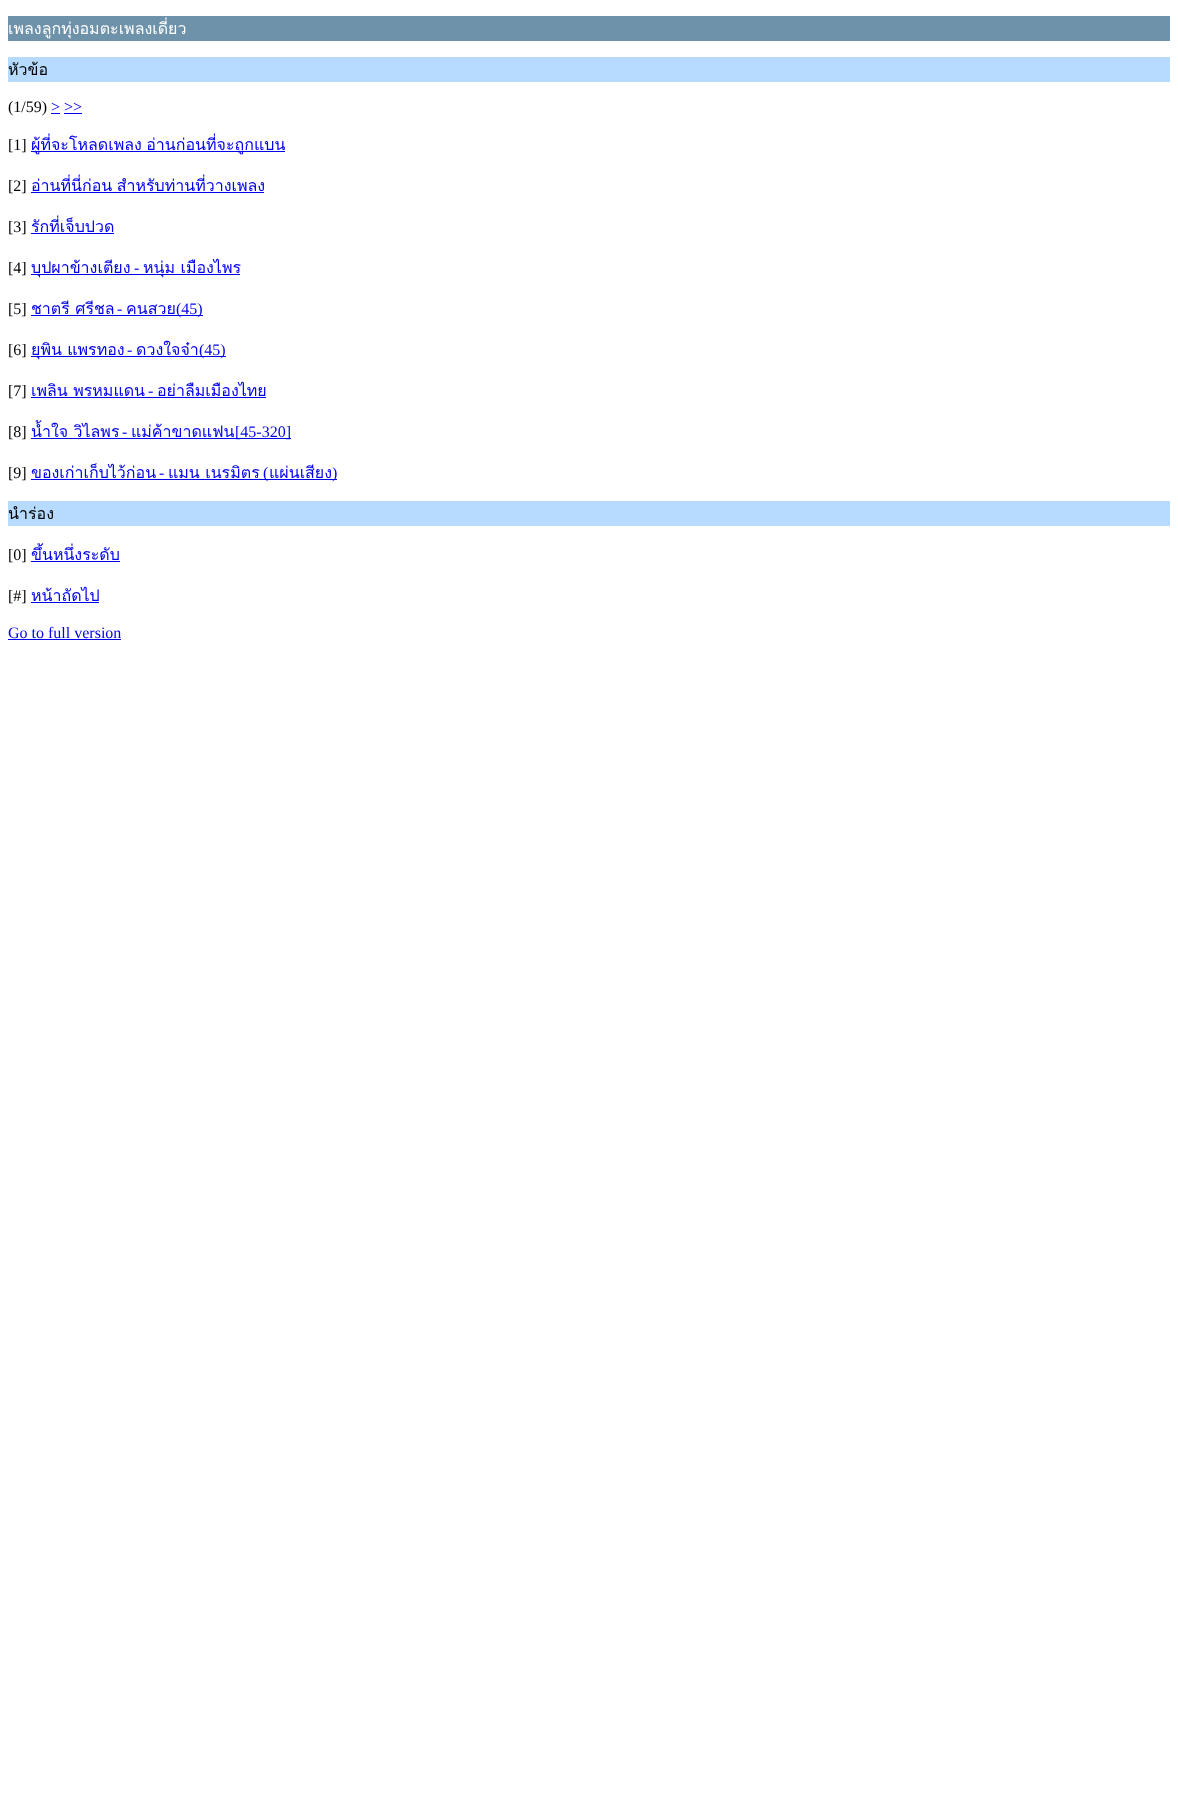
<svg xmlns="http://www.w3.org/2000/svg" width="1178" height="1796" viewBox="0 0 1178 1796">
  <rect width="100%" height="100%" fill="rgb(255,255,255)"/>
  <rect x="8" y="16" width="1162" height="25" fill="rgb(109,146,170)"/>
  <text x="8" y="34" font-family="Loma" font-size="16" fill="rgb(255,255,255)">เพลงลูกทุ่งอมตะเพลงเดี่ยว</text>
  <rect x="8" y="57" width="1162" height="25" fill="rgb(182,219,255)"/>
  <text x="8" y="75" font-family="Loma" font-size="16" fill="rgb(0,0,0)">หัวข้อ</text>
  <text x="8" y="112" font-family="Liberation Serif" font-size="16" fill="rgb(0,0,0)">(1/59)</text>
  <text x="51" y="112" font-family="Liberation Serif" font-size="16" fill="rgb(0,0,238)">&gt; &gt;&gt;</text>
  <rect x="51" y="113" width="9" height="1" fill="rgb(0,0,238)"/>
  <rect x="64" y="113" width="18" height="1" fill="rgb(0,0,238)"/>
  <text x="8" y="150" font-family="Liberation Serif" font-size="16" fill="rgb(0,0,0)">[1]</text>
  <rect x="31" y="151" width="254" height="1" fill="rgb(0,0,238)"/>
  <text x="31" y="150" word-spacing="-1" font-family="Loma" font-size="16" fill="rgb(0,0,238)">ผู้ที่จะโหลดเพลง อ่านก่อนที่จะถูกแบน</text>
  <text x="8" y="191" font-family="Liberation Serif" font-size="16" fill="rgb(0,0,0)">[2]</text>
  <text x="31" y="191" word-spacing="-1" font-family="Loma" font-size="16" fill="rgb(0,0,238)">อ่านที่นี่ก่อน สำหรับท่านที่วางเพลง</text>
  <rect x="31" y="192" width="233" height="1" fill="rgb(0,0,238)"/>
  <text x="8" y="232" font-family="Liberation Serif" font-size="16" fill="rgb(0,0,0)">[3]</text>
  <text x="31" y="232" font-family="Loma" font-size="16" fill="rgb(0,0,238)">รักที่เจ็บปวด</text>
  <rect x="31" y="233" width="83" height="1" fill="rgb(0,0,238)"/>
  <text x="8" y="273" font-family="Liberation Serif" font-size="16" fill="rgb(0,0,0)">[4]</text>
  <rect x="31" y="274" width="209" height="1" fill="rgb(0,0,238)"/>
  <text x="31" y="273" font-family="Loma" font-size="16" fill="rgb(0,0,238)">บุปผาข้างเตียง</text>
  <text x="134" y="273" font-family="Liberation Serif" font-size="16" fill="rgb(0,0,238)">-</text>
  <text x="143" y="273" font-family="Loma" font-size="16" fill="rgb(0,0,238)">หนุ่ม เมืองไพร</text>
  <text x="8" y="314" font-family="Liberation Serif" font-size="16" fill="rgb(0,0,0)">[5]</text>
  <text x="31" y="314" font-family="Loma" font-size="16" fill="rgb(0,0,238)">ชาตรี ศรีชล</text>
  <text x="117" y="314" font-family="Liberation Serif" font-size="16" fill="rgb(0,0,238)">-</text>
  <rect x="31" y="315" width="172" height="1" fill="rgb(0,0,238)"/>
  <text x="126" y="314" font-family="Loma" font-size="16" fill="rgb(0,0,238)">คนสวย</text>
  <text x="176" y="314" font-family="Liberation Serif" font-size="16" fill="rgb(0,0,238)">(45)</text>
  <text x="8" y="355" font-family="Liberation Serif" font-size="16" fill="rgb(0,0,0)">[6]</text>
  <rect x="31" y="356" width="195" height="1" fill="rgb(0,0,238)"/>
  <text x="31" y="355" font-family="Loma" font-size="16" fill="rgb(0,0,238)">ยุพิน แพรทอง</text>
  <text x="127" y="355" font-family="Liberation Serif" font-size="16" fill="rgb(0,0,238)">-</text>
  <text x="136" y="355" font-family="Loma" font-size="16" fill="rgb(0,0,238)">ดวงใจจ๋า</text>
  <text x="199" y="355" font-family="Liberation Serif" font-size="16" fill="rgb(0,0,238)">(45)</text>
  <text x="8" y="396" font-family="Liberation Serif" font-size="16" fill="rgb(0,0,0)">[7]</text>
  <text x="31" y="396" font-family="Loma" font-size="16" fill="rgb(0,0,238)">เพลิน พรหมแดน</text>
  <text x="148" y="396" font-family="Liberation Serif" font-size="16" fill="rgb(0,0,238)">-</text>
  <rect x="31" y="397" width="235" height="1" fill="rgb(0,0,238)"/>
  <text x="157" y="396" font-family="Loma" font-size="16" fill="rgb(0,0,238)">อย่าลืมเมืองไทย</text>
  <text x="8" y="437" font-family="Liberation Serif" font-size="16" fill="rgb(0,0,0)">[8]</text>
  <text x="31" y="437" font-family="Loma" font-size="16" fill="rgb(0,0,238)">น้ำใจ วิไลพร</text>
  <text x="122" y="437" font-family="Liberation Serif" font-size="16" fill="rgb(0,0,238)">-</text>
  <rect x="31" y="438" width="260" height="1" fill="rgb(0,0,238)"/>
  <text x="131" y="437" font-family="Loma" font-size="16" fill="rgb(0,0,238)">แม่ค้าขาดแฟน</text>
  <text x="235" y="437" font-family="Liberation Serif" font-size="16" fill="rgb(0,0,238)">[45-320]</text>
  <text x="8" y="478" font-family="Liberation Serif" font-size="16" fill="rgb(0,0,0)">[9]</text>
  <text x="31" y="478" font-family="Loma" font-size="16" fill="rgb(0,0,238)">ของเก่าเก็บไว้ก่อน</text>
  <text x="159" y="478" font-family="Liberation Serif" font-size="16" fill="rgb(0,0,238)">-</text>
  <rect x="31" y="479" width="306" height="1" fill="rgb(0,0,238)"/>
  <text x="168" y="478" font-family="Loma" font-size="16" fill="rgb(0,0,238)">แมน เนรมิตร</text>
  <text x="263" y="478" font-family="Liberation Serif" font-size="16" fill="rgb(0,0,238)">(</text>
  <text x="269" y="478" font-family="Loma" font-size="16" fill="rgb(0,0,238)">แผ่นเสียง</text>
  <text x="332" y="478" font-family="Liberation Serif" font-size="16" fill="rgb(0,0,238)">)</text>
  <rect x="8" y="501" width="1162" height="25" fill="rgb(182,219,255)"/>
  <text x="8" y="519" font-family="Loma" font-size="16" fill="rgb(0,0,0)">นำร่อง</text>
  <text x="8" y="560" font-family="Liberation Serif" font-size="16" fill="rgb(0,0,0)">[0]</text>
  <text x="31" y="560" font-family="Loma" font-size="16" fill="rgb(0,0,238)">ขึ้นหนึ่งระดับ</text>
  <rect x="31" y="561" width="89" height="1" fill="rgb(0,0,238)"/>
  <text x="8" y="601" font-family="Liberation Serif" font-size="16" fill="rgb(0,0,0)">[#]</text>
  <text x="31" y="601" font-family="Loma" font-size="16" fill="rgb(0,0,238)">หน้าถัดไป</text>
  <rect x="31" y="602" width="68" height="1" fill="rgb(0,0,238)"/>
  <text x="8" y="638" font-family="Liberation Serif" font-size="16" fill="rgb(0,0,238)">Go to full version</text>
  <rect x="8" y="639" width="113" height="1" fill="rgb(0,0,238)"/>
</svg>
